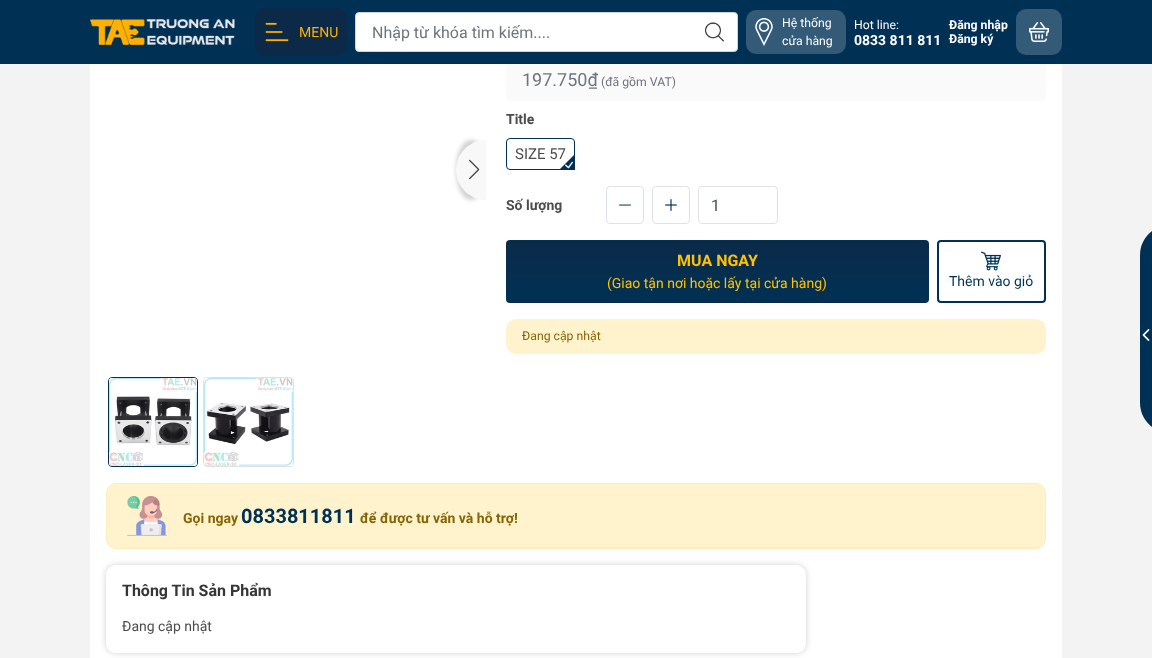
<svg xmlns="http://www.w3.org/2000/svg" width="1152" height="658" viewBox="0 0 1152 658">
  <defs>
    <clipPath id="clip1"><rect x="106" y="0" width="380" height="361"/></clipPath>
    <clipPath id="clip2"><rect x="559" y="154" width="16" height="16"/></clipPath>
    <clipPath id="clip3"><rect x="506" y="240" width="423" height="63" rx="4"/></clipPath>
    <linearGradient id="g1" gradientUnits="userSpaceOnUse" x1="718" y1="180" x2="718" y2="241"><stop offset="0" stop-color="rgb(12,42,72)"/><stop offset="1" stop-color="rgb(0,49,85)"/></linearGradient>
    <linearGradient id="g2" gradientUnits="userSpaceOnUse" x1="718" y1="241" x2="718" y2="302"><stop offset="0" stop-color="rgb(12,42,72)"/><stop offset="1" stop-color="rgb(0,49,85)"/></linearGradient>
    <linearGradient id="g3" gradientUnits="userSpaceOnUse" x1="718" y1="302" x2="718" y2="363"><stop offset="0" stop-color="rgb(12,42,72)"/><stop offset="1" stop-color="rgb(0,49,85)"/></linearGradient>
    <clipPath id="clip4"><path d="M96 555H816V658H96ZM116 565H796C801.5 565 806 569.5 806 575V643C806 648.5 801.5 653 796 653H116C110.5 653 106 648.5 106 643V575C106 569.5 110.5 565 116 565Z" clip-rule="evenodd"/></clipPath>
  </defs>
  <rect width="100%" height="100%" fill="rgb(243,243,243)"/>
  <rect x="90" y="64" width="972" height="594" fill="rgb(255,255,255)"/>
  <rect x="506" y="12" width="540" height="89" rx="4" fill="rgb(250,250,250)"/>
  <rect x="0" y="0" width="1152" height="64" fill="rgb(0,49,85)"/>
  <image x="90" y="19" width="145" height="26" href="pic1.png"/>
  <rect x="255" y="8" width="92" height="48" rx="10" fill="rgb(12,42,72)"/>
  <image x="265" y="22" width="24" height="20" href="pic2.png"/>
  <text x="299" y="37" font-family="Roboto" font-size="14" fill="rgb(255,176,0)">MENU</text>
  <rect x="355.5" y="12.5" width="382" height="39" rx="3.5" fill="rgb(255,255,255)" stroke="rgb(206,212,218)"/>
  <text x="372" y="38" font-family="Roboto" font-size="16" fill="rgb(108,117,125)">Nhập từ khóa tìm kiếm....</text>
  <image x="705" y="22" width="19" height="20" href="pic3.png"/>
  <rect x="746" y="10" width="100" height="44" rx="10" fill="rgb(51,90,119)"/>
  <image x="755" y="18" width="18" height="28" href="pic4.png"/>
  <g font-family="Roboto" font-size="12.25" fill="rgb(255,255,255)">
    <text>
      <tspan x="782" y="27">Hệ thống</tspan>
      <tspan x="782" y="45">cửa hàng</tspan>
    </text>
    <text x="854" y="29">Hot line:</text>
  </g>
  <text x="854" y="45" font-family="Roboto" font-size="14" font-weight="bold" fill="rgb(255,255,255)">0833 811 811</text>
  <g font-family="Roboto" font-size="12.25" font-weight="bold" fill="rgb(255,255,255)">
    <text>
      <tspan x="949" y="29">Đăng nhập</tspan>
      <tspan x="949" y="43">Đăng ký</tspan>
    </text>
  </g>
  <rect x="1016" y="9" width="46" height="46" rx="10" fill="rgb(51,90,119)"/>
  <image x="1029" y="22" width="20" height="20" href="pic5.png"/>
  <g clip-path="url(#clip1)">
    <rect x="456" y="140" width="30" height="60" rx="30" fill="rgba(26,26,26,0.2)" filter="blur(2px)"/>
  </g>
  <path d="M486 140V200C469.5 200 456 186.5 456 170C456 153.5 469.5 140 486 140Z" fill="rgb(248,248,248)"/>
  <image x="469" y="159" width="11" height="21" href="pic6.png"/>
  <rect x="108.5" y="377.5" width="89" height="89" rx="3.5" fill="none" stroke="rgb(0,49,85)"/>
  <image x="109" y="378" width="88" height="88" href="pic7.png"/>
  <rect x="203.5" y="377.5" width="90" height="89" rx="3.5" fill="none" stroke="rgb(222,226,230)"/>
  <image x="204" y="378" width="89" height="88" href="pic8.png"/>
  <text x="522" y="86" font-family="Roboto" font-size="18" fill="rgb(108,117,125)">197.750₫</text>
  <text x="601" y="86" font-family="Roboto" font-size="12.25" fill="rgb(108,117,125)">(đã gồm VAT)</text>
  <text x="506" y="124" font-family="Roboto" font-size="14" font-weight="bold" fill="rgb(76,76,76)">Title</text>
  <rect x="506.5" y="138.5" width="68" height="31" rx="3.5" fill="none" stroke="rgb(0,49,85)"/>
  <text x="515" y="159" font-family="Roboto" font-size="15" fill="rgb(76,76,76)">SIZE 57</text>
  <g clip-path="url(#clip2)">
    <path d="M591 170H559L575 154Z" fill="rgb(0,49,85)"/>
  </g>
  <image x="565" y="161" width="8" height="8" href="pic9.png"/>
  <text x="506" y="210" font-family="Roboto" font-size="14" font-weight="bold" fill="rgb(76,76,76)">Số lượng</text>
  <rect x="606.5" y="186.5" width="37" height="37" rx="3.5" fill="none" stroke="rgb(222,226,230)"/>
  <image x="619" y="204" width="12" height="2" href="pic10.png"/>
  <rect x="652.5" y="186.5" width="37" height="37" rx="3.5" fill="none" stroke="rgb(222,226,230)"/>
  <image x="665" y="199" width="12" height="12" href="pic11.png"/>
  <rect x="698.5" y="186.5" width="79" height="37" rx="3.5" fill="none" stroke="rgb(222,226,230)"/>
  <text x="711" y="211" font-family="Roboto" font-size="16" fill="rgb(73,80,87)">1</text>
  <g clip-path="url(#clip3)">
    <rect x="506" y="240" width="423" height="1" fill="url(#g1)"/>
    <rect x="506" y="241" width="423" height="61" fill="url(#g2)"/>
    <rect x="506" y="302" width="423" height="1" fill="url(#g3)"/>
  </g>
  <text x="677" y="266" font-family="Roboto" font-size="16" font-weight="bold" fill="rgb(255,193,7)">MUA NGAY</text>
  <text x="607" y="288" font-family="Roboto" font-size="14" fill="rgb(255,193,7)">(Giao tận nơi hoặc lấy tại cửa hàng)</text>
  <rect x="938" y="241" width="107" height="61" rx="3" fill="none" stroke="rgb(0,49,85)" stroke-width="2"/>
  <image x="981" y="251" width="20" height="20" href="pic12.png"/>
  <text x="949" y="286" font-family="Roboto" font-size="14" fill="rgb(0,49,85)">Thêm vào giỏ</text>
  <rect x="506" y="319" width="540" height="35" rx="10" fill="rgb(255,243,205)"/>
  <text x="522" y="340" font-family="Roboto" font-size="12.25" fill="rgb(133,100,4)">Đang cập nhật</text>
  <path d="M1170 225H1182V433H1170C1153.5 433 1140 419.5 1140 403V255C1140 238.5 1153.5 225 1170 225Z" fill="rgb(0,49,85)"/>
  <image x="1142" y="329" width="8" height="12" href="pic13.png"/>
  <rect x="106.5" y="483.5" width="939" height="65" rx="9.5" fill="rgb(255,243,205)" stroke="rgb(255,238,186)"/>
  <image x="127" y="496" width="40" height="40" href="pic14.png"/>
  <text x="183" y="523" font-family="Roboto" font-size="14" font-weight="bold" fill="rgb(133,100,4)">Gọi ngay</text>
  <text x="241" y="523" font-family="Roboto" font-size="20" font-weight="bold" fill="rgb(0,49,85)">0833811811</text>
  <text x="360" y="523" font-family="Roboto" font-size="14" font-weight="bold" fill="rgb(133,100,4)">để được tư vấn và hỗ trợ!</text>
  <g clip-path="url(#clip4)">
    <rect x="106" y="565" width="700" height="88" rx="10" fill="rgba(60,64,67,0.25)" filter="blur(3px)"/>
  </g>
  <text x="122" y="596" font-family="Roboto" font-size="16" font-weight="bold" fill="rgb(54,54,54)">Thông Tin Sản Phẩm</text>
  <text x="122" y="631" font-family="Roboto" font-size="14" fill="rgb(76,76,76)">Đang cập nhật</text>
</svg>
